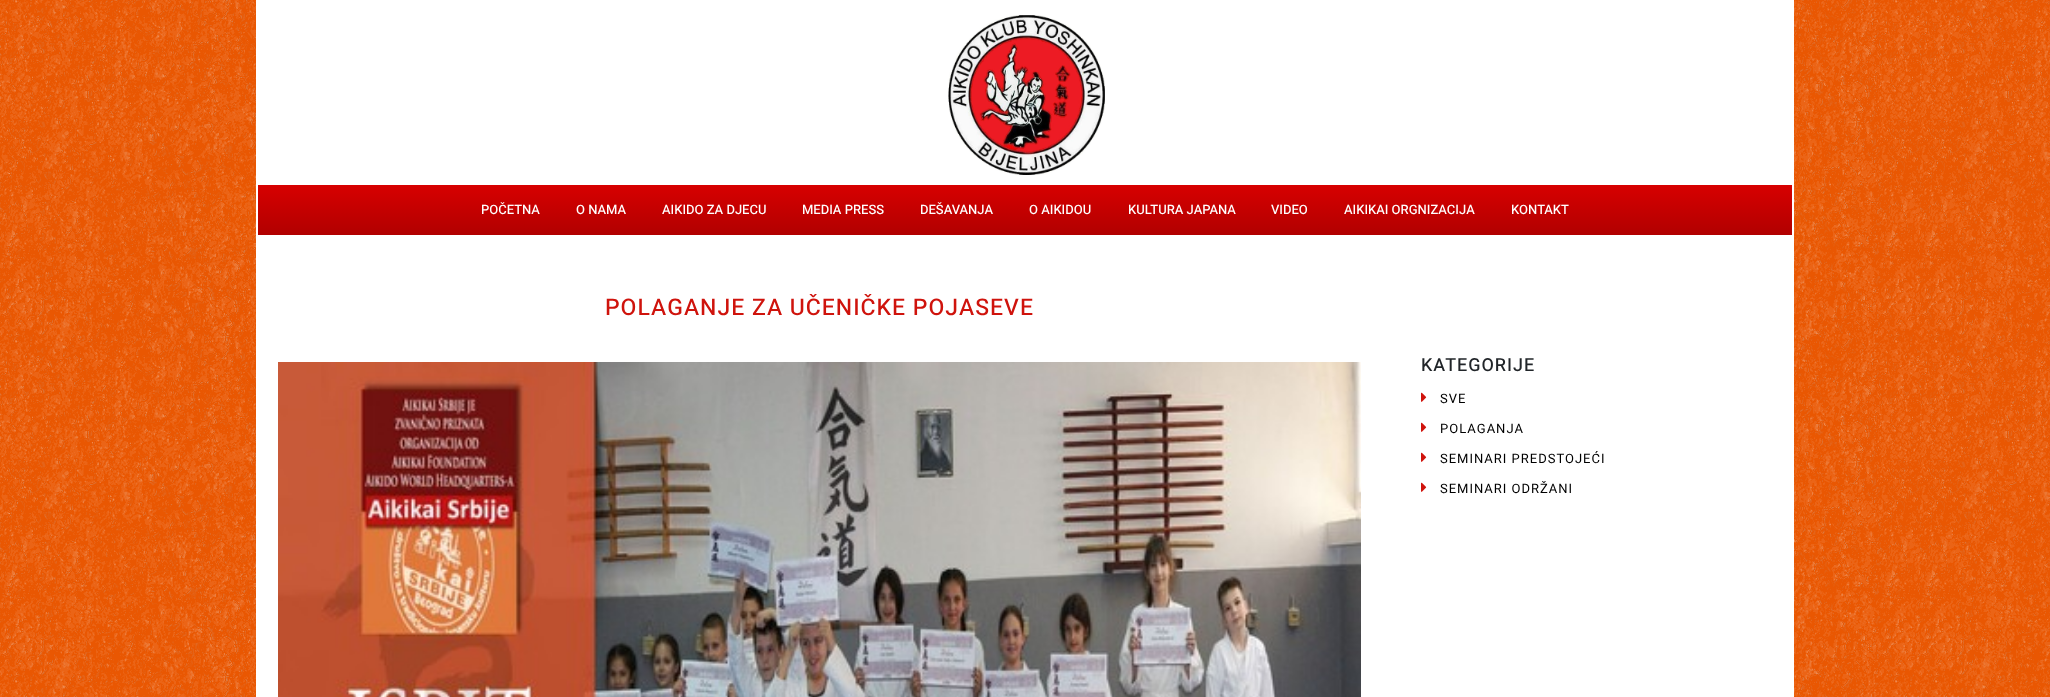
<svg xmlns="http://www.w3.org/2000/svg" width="2050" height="697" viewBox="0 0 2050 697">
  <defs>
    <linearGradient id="g1" gradientUnits="userSpaceOnUse" x1="1025" y1="185" x2="1025" y2="235"><stop offset="0" stop-color="rgb(215,0,0)"/><stop offset="1" stop-color="rgb(177,0,0)"/></linearGradient>
  </defs>
  <rect width="100%" height="100%" fill="rgb(255,255,255)"/>
  <image x="0" y="0" width="2050" height="697" href="pic1.png"/>
  <rect x="256" y="0" width="1538" height="697" fill="rgb(255,255,255)"/>
  <image x="948" y="15" width="157" height="160" href="pic2.png"/>
  <rect x="258" y="185" width="1534" height="50" fill="url(#g1)"/>
  <g font-family="Heebo" font-size="13" font-weight="500" fill="rgb(255,255,255)">
    <text x="481" y="214">POČETNA</text>
    <text x="576" y="214">O NAMA</text>
    <text x="662" y="214">AIKIDO ZA DJECU</text>
    <text x="802" y="214">MEDIA PRESS</text>
    <text x="920" y="214">DEŠAVANJA</text>
    <text x="1029" y="214">O AIKIDOU</text>
    <text x="1128" y="214">KULTURA JAPANA</text>
    <text x="1271" y="214">VIDEO</text>
    <text x="1344" y="214">AIKIKAI ORGNIZACIJA</text>
    <text x="1511" y="214">KONTAKT</text>
  </g>
  <text x="605" y="315" font-family="Heebo" font-size="23" font-weight="500" letter-spacing="1" fill="rgb(207,19,12)">POLAGANJE ZA UČENIČKE POJASEVE</text>
  <image x="278" y="362" width="1083" height="335" href="pic3.png"/>
  <text x="1421" y="371" font-family="Heebo" font-size="18" font-weight="500" letter-spacing="1" fill="rgb(33,37,41)">KATEGORIJE</text>
  <image x="1421" y="392" width="6" height="10" href="pic4.png"/>
  <text x="1440" y="403" font-family="Heebo" font-size="13" letter-spacing="1" fill="rgb(0,0,0)">SVE</text>
  <image x="1421" y="422" width="6" height="10" href="pic4.png"/>
  <text x="1440" y="433" font-family="Heebo" font-size="13" letter-spacing="1" fill="rgb(0,0,0)">POLAGANJA</text>
  <image x="1421" y="452" width="6" height="10" href="pic4.png"/>
  <text x="1440" y="463" font-family="Heebo" font-size="13" letter-spacing="1" fill="rgb(0,0,0)">SEMINARI PREDSTOJEĆI</text>
  <image x="1421" y="482" width="6" height="10" href="pic4.png"/>
  <text x="1440" y="493" font-family="Heebo" font-size="13" letter-spacing="1" fill="rgb(0,0,0)">SEMINARI ODRŽANI</text>
</svg>
